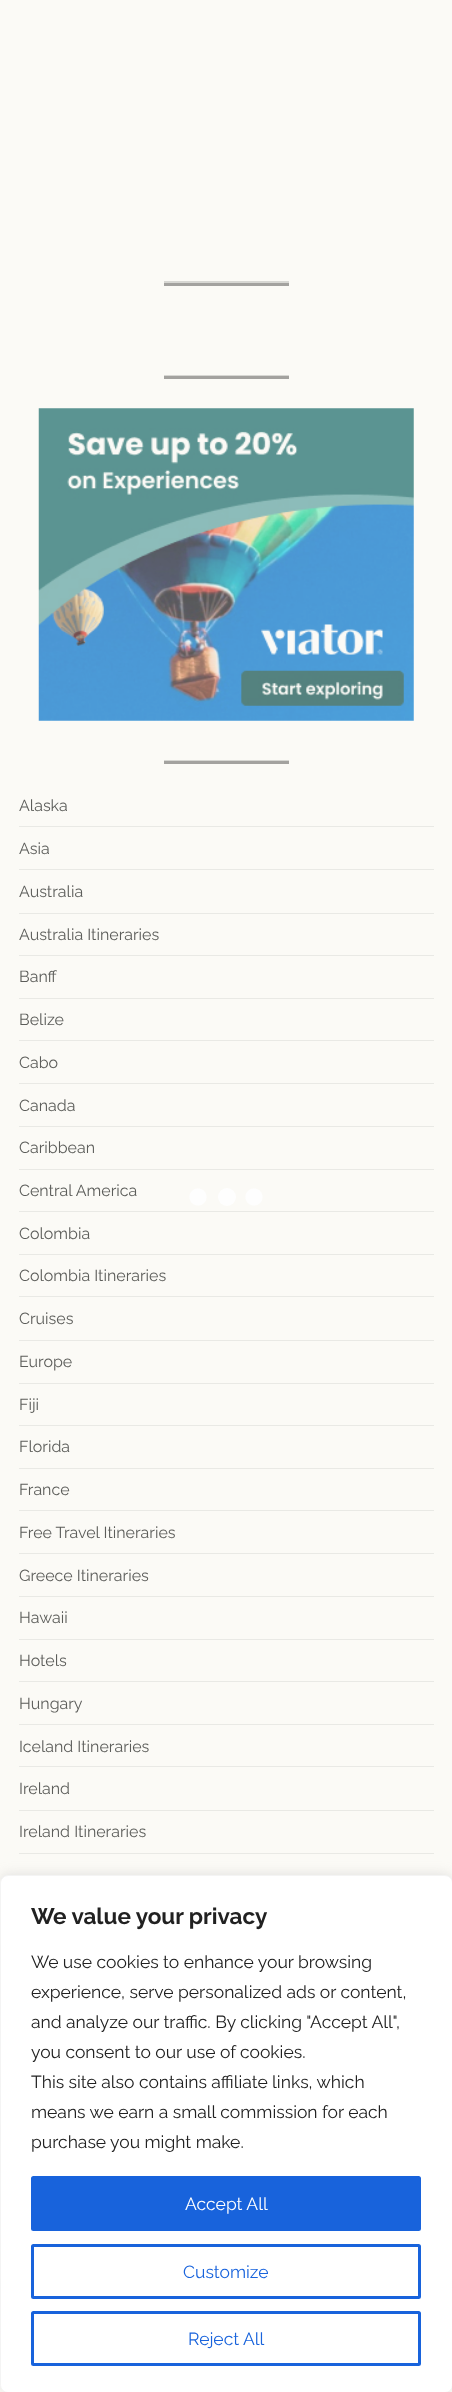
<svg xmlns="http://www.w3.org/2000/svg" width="452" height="2392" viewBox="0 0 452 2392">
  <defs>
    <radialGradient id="g1" gradientUnits="userSpaceOnUse" cx="254" cy="1197" r="9"><stop offset="0.9" stop-color="rgb(254,254,254)"/><stop offset="1" stop-color="rgb(251,250,246)"/></radialGradient>
    <radialGradient id="g2" gradientUnits="userSpaceOnUse" cx="198" cy="1197" r="9"><stop offset="0.9" stop-color="rgb(254,254,254)"/><stop offset="1" stop-color="rgb(251,250,246)"/></radialGradient>
  </defs>
  <rect width="100%" height="100%" fill="rgb(251,250,246)"/>
  <rect x="164" y="281" width="125" height="2" fill="rgb(215,215,211)"/>
  <rect x="164" y="283" width="125" height="3" fill="rgb(163,162,159)"/>
  <rect x="164" y="375" width="125" height="1" fill="rgb(215,215,211)"/>
  <rect x="164" y="376" width="125" height="3" fill="rgb(163,162,159)"/>
  <image x="38" y="408" width="376" height="313" href="pic1.png"/>
  <rect x="164" y="760" width="125" height="1" fill="rgb(215,215,211)"/>
  <rect x="164" y="761" width="125" height="3" fill="rgb(163,162,159)"/>
  <rect x="19" y="826" width="415" height="1" fill="rgb(233,233,229)"/>
  <text x="19" y="811" font-family="Raleway" font-size="16" fill="rgb(92,93,90)">Alaska</text>
  <rect x="19" y="869" width="415" height="1" fill="rgb(233,233,229)"/>
  <text x="19" y="854" font-family="Raleway" font-size="16" fill="rgb(92,93,90)">Asia</text>
  <rect x="19" y="913" width="415" height="1" fill="rgb(233,233,229)"/>
  <text x="19" y="897" font-family="Raleway" font-size="16" fill="rgb(92,93,90)">Australia</text>
  <rect x="19" y="955" width="415" height="1" fill="rgb(233,233,229)"/>
  <text x="19" y="940" font-family="Raleway" font-size="16" fill="rgb(92,93,90)">Australia Itineraries</text>
  <rect x="19" y="998" width="415" height="1" fill="rgb(233,233,229)"/>
  <text x="19" y="982" font-family="Raleway" font-size="16" fill="rgb(92,93,90)">Banff</text>
  <rect x="19" y="1040" width="415" height="1" fill="rgb(233,233,229)"/>
  <text x="19" y="1025" font-family="Raleway" font-size="16" fill="rgb(92,93,90)">Belize</text>
  <rect x="19" y="1083" width="415" height="1" fill="rgb(233,233,229)"/>
  <text x="19" y="1068" font-family="Raleway" font-size="16" fill="rgb(92,93,90)">Cabo</text>
  <rect x="19" y="1126" width="415" height="1" fill="rgb(233,233,229)"/>
  <text x="19" y="1111" font-family="Raleway" font-size="16" fill="rgb(92,93,90)">Canada</text>
  <rect x="19" y="1169" width="415" height="1" fill="rgb(233,233,229)"/>
  <text x="19" y="1153" font-family="Raleway" font-size="16" fill="rgb(92,93,90)">Caribbean</text>
  <rect x="19" y="1211" width="415" height="1" fill="rgb(233,233,229)"/>
  <text x="19" y="1196" font-family="Raleway" font-size="16" fill="rgb(92,93,90)">Central America</text>
  <rect x="19" y="1254" width="415" height="1" fill="rgb(233,233,229)"/>
  <text x="19" y="1239" font-family="Raleway" font-size="16" fill="rgb(92,93,90)">Colombia</text>
  <rect x="19" y="1296" width="415" height="1" fill="rgb(233,233,229)"/>
  <text x="19" y="1281" font-family="Raleway" font-size="16" fill="rgb(92,93,90)">Colombia Itineraries</text>
  <rect x="19" y="1340" width="415" height="1" fill="rgb(233,233,229)"/>
  <text x="19" y="1324" font-family="Raleway" font-size="16" fill="rgb(92,93,90)">Cruises</text>
  <rect x="19" y="1383" width="415" height="1" fill="rgb(233,233,229)"/>
  <text x="19" y="1367" font-family="Raleway" font-size="16" fill="rgb(92,93,90)">Europe</text>
  <rect x="19" y="1425" width="415" height="1" fill="rgb(233,233,229)"/>
  <text x="19" y="1410" font-family="Raleway" font-size="16" fill="rgb(92,93,90)">Fiji</text>
  <rect x="19" y="1468" width="415" height="1" fill="rgb(233,233,229)"/>
  <text x="19" y="1452" font-family="Raleway" font-size="16" fill="rgb(92,93,90)">Florida</text>
  <rect x="19" y="1510" width="415" height="1" fill="rgb(233,233,229)"/>
  <text x="19" y="1495" font-family="Raleway" font-size="16" fill="rgb(92,93,90)">France</text>
  <rect x="19" y="1553" width="415" height="1" fill="rgb(233,233,229)"/>
  <text x="19" y="1538" font-family="Raleway" font-size="16" fill="rgb(92,93,90)">Free Travel Itineraries</text>
  <rect x="19" y="1596" width="415" height="1" fill="rgb(233,233,229)"/>
  <text x="19" y="1581" font-family="Raleway" font-size="16" fill="rgb(92,93,90)">Greece Itineraries</text>
  <rect x="19" y="1639" width="415" height="1" fill="rgb(233,233,229)"/>
  <text x="19" y="1623" font-family="Raleway" font-size="16" fill="rgb(92,93,90)">Hawaii</text>
  <rect x="19" y="1681" width="415" height="1" fill="rgb(233,233,229)"/>
  <text x="19" y="1666" font-family="Raleway" font-size="16" fill="rgb(92,93,90)">Hotels</text>
  <rect x="19" y="1724" width="415" height="1" fill="rgb(233,233,229)"/>
  <text x="19" y="1709" font-family="Raleway" font-size="16" fill="rgb(92,93,90)">Hungary</text>
  <rect x="19" y="1766" width="415" height="1" fill="rgb(233,233,229)"/>
  <text x="19" y="1752" font-family="Raleway" font-size="16" fill="rgb(92,93,90)">Iceland Itineraries</text>
  <rect x="19" y="1810" width="415" height="1" fill="rgb(233,233,229)"/>
  <text x="19" y="1794" font-family="Raleway" font-size="16" fill="rgb(92,93,90)">Ireland</text>
  <rect x="19" y="1853" width="415" height="1" fill="rgb(233,233,229)"/>
  <text x="19" y="1837" font-family="Raleway" font-size="16" fill="rgb(92,93,90)">Ireland Itineraries</text>
  <rect x="245" y="1188" width="18" height="18" fill="url(#g1)"/>
  <rect x="189" y="1188" width="18" height="18" fill="url(#g2)"/>
  <circle cx="227" cy="1197" r="9" fill="rgb(254,254,254)"/>
  <rect x="0" y="1874" width="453" height="517" rx="8" fill="rgba(172,171,171,0.3)" filter="blur(6px)"/>
  <rect x="0.5" y="1875.5" width="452" height="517" rx="7.5" fill="rgb(255,255,255)" stroke="rgb(244,244,244)"/>
  <text x="31" y="1924" font-family="Raleway" font-size="22.5" font-weight="bold" fill="rgb(33,33,33)">We value your privacy</text>
  <g font-family="Raleway" font-size="17.5" fill="rgb(33,33,33)">
    <text>
      <tspan x="31" y="1968">We use cookies to enhance your browsing</tspan>
      <tspan x="31" y="1998">experience, serve personalized ads or content,</tspan>
      <tspan x="31" y="2028">and analyze our traffic. By clicking "Accept All",</tspan>
      <tspan x="31" y="2058">you consent to our use of cookies.</tspan>
      <tspan x="31" y="2088">This site also contains affiliate links, which</tspan>
      <tspan x="31" y="2118">means we earn a small commission for each</tspan>
      <tspan x="31" y="2148">purchase you might make.</tspan>
    </text>
  </g>
  <rect x="32.5" y="2177.5" width="387" height="52" rx="1" fill="rgb(24,99,220)" stroke="rgb(24,99,220)" stroke-width="3"/>
  <text x="185" y="2210" font-family="Raleway" font-size="17.5" fill="rgb(255,255,255)">Accept All</text>
  <rect x="32.5" y="2245.5" width="387" height="52" rx="1" fill="none" stroke="rgb(24,99,220)" stroke-width="3"/>
  <text x="183" y="2278" font-family="Raleway" font-size="17.5" fill="rgb(24,99,220)">Customize</text>
  <rect x="32.5" y="2312.5" width="387" height="52" rx="1" fill="none" stroke="rgb(24,99,220)" stroke-width="3"/>
  <text x="188" y="2345" font-family="Raleway" font-size="17.5" fill="rgb(24,99,220)">Reject All</text>
</svg>
